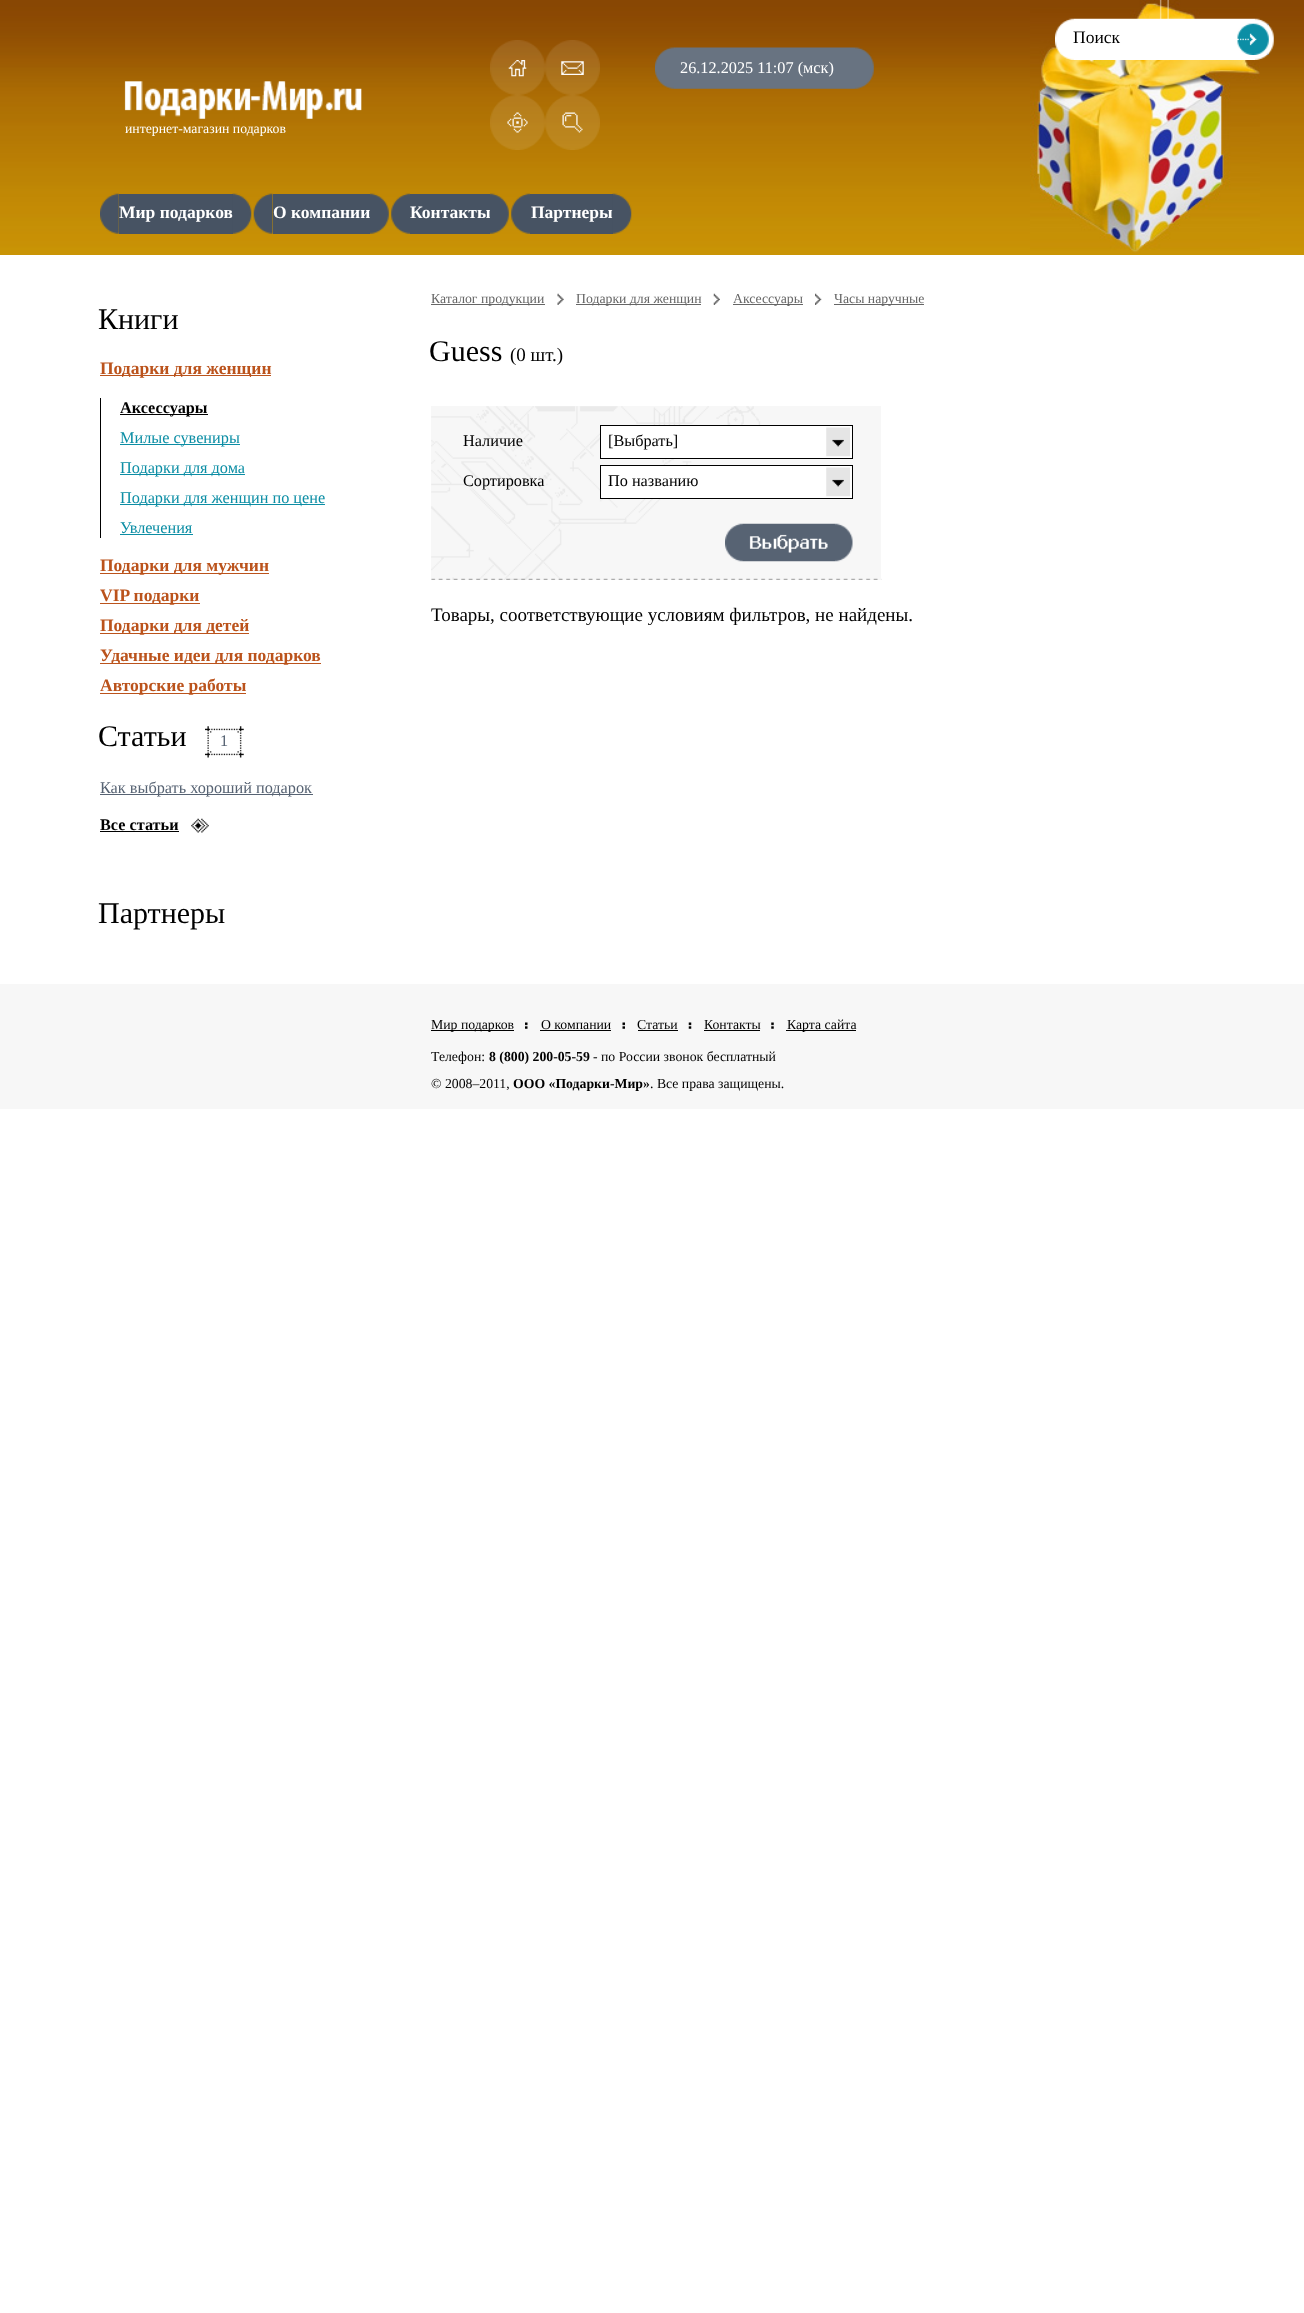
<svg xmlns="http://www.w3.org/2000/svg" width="1304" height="2313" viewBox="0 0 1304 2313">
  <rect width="100%" height="100%" fill="rgb(255,255,255)"/>
  <image x="0" y="0" width="1304" height="255" href="pic1.png"/>
  <image x="1030" y="0" width="230" height="253" href="pic2.png"/>
  <image x="1055" y="0" width="219" height="60" href="pic3.png"/>
  <text x="1073" y="43" font-family="Liberation Serif" font-size="17.5" fill="rgb(0,0,0)">Поиск</text>
  <image x="1237" y="23" width="32" height="32" href="pic4.png"/>
  <image x="490" y="40" width="110" height="110" href="pic5.png"/>
  <image x="508" y="60" width="19" height="17" href="pic6.png"/>
  <image x="561" y="61" width="23" height="14" href="pic7.png"/>
  <image x="507" y="112" width="21" height="21" href="pic8.png"/>
  <image x="562" y="112" width="21" height="21" href="pic9.png"/>
  <image x="655" y="47" width="219" height="42" href="pic10.png"/>
  <text x="680" y="73" font-family="Liberation Serif" font-size="16.25" fill="rgb(255,255,255)">26.12.2025 11:07 (мск)</text>
  <image x="124" y="81" width="238" height="38" href="pic11.png"/>
  <text x="125" y="133" font-family="Liberation Serif" font-size="13.75" fill="rgb(255,255,255)">интернет-магазин подарков</text>
  <image x="100" y="193" width="19" height="41" href="pic12.png"/>
  <rect x="119" y="194" width="114" height="40" fill="rgb(71,83,99)"/>
  <text x="119" y="218" font-family="Liberation Serif" font-size="17.5" font-weight="bold" fill="rgb(255,255,255)">Мир подарков</text>
  <image x="232" y="193" width="20" height="41" href="pic13.png"/>
  <image x="253" y="193" width="20" height="41" href="pic14.png"/>
  <rect x="273" y="194" width="97" height="40" fill="rgb(71,83,99)"/>
  <text x="273" y="218" font-family="Liberation Serif" font-size="17.5" font-weight="bold" fill="rgb(255,255,255)">О компании</text>
  <image x="370" y="193" width="19" height="41" href="pic15.png"/>
  <image x="391" y="193" width="19" height="41" href="pic16.png"/>
  <rect x="410" y="194" width="80" height="40" fill="rgb(71,83,99)"/>
  <text x="410" y="218" font-family="Liberation Serif" font-size="17.5" font-weight="bold" fill="rgb(255,255,255)">Контакты</text>
  <image x="490" y="193" width="19" height="41" href="pic17.png"/>
  <image x="511" y="193" width="19" height="41" href="pic16.png"/>
  <rect x="530" y="194" width="83" height="40" fill="rgb(71,83,99)"/>
  <text x="531" y="218" font-family="Liberation Serif" font-size="17.5" font-weight="bold" fill="rgb(255,255,255)">Партнеры</text>
  <image x="612" y="193" width="20" height="41" href="pic18.png"/>
  <text x="98" y="329" font-family="Liberation Serif" font-size="30" fill="rgb(0,0,0)">Книги</text>
  <rect x="100" y="375" width="171" height="1" fill="rgb(187,83,28)"/>
  <text x="100" y="374" font-family="Liberation Serif" font-size="17.5" font-weight="bold" fill="rgb(187,83,28)">Подарки для женщин</text>
  <rect x="100" y="398" width="1" height="140" fill="rgb(0,0,0)"/>
  <rect x="120" y="414" width="88" height="1" fill="rgb(0,0,0)"/>
  <text x="120" y="413" font-family="Liberation Serif" font-size="16.25" font-weight="bold" fill="rgb(0,0,0)">Аксессуары</text>
  <rect x="120" y="444" width="120" height="1" fill="rgb(12,142,165)"/>
  <text x="120" y="443" font-family="Liberation Serif" font-size="16.25" fill="rgb(12,142,165)">Милые сувениры</text>
  <rect x="120" y="474" width="125" height="1" fill="rgb(12,142,165)"/>
  <text x="120" y="473" font-family="Liberation Serif" font-size="16.25" fill="rgb(12,142,165)">Подарки для дома</text>
  <rect x="120" y="504" width="205" height="1" fill="rgb(12,142,165)"/>
  <g font-family="Liberation Serif" font-size="16.25" fill="rgb(12,142,165)">
    <text>
      <tspan x="120" y="503">Подарки для женщин по цене</tspan>
      <tspan x="120" y="533">Увлечения</tspan>
    </text>
  </g>
  <rect x="120" y="534" width="73" height="1" fill="rgb(12,142,165)"/>
  <rect x="100" y="573" width="169" height="1" fill="rgb(187,83,28)"/>
  <text x="100" y="571" font-family="Liberation Serif" font-size="17.5" font-weight="bold" fill="rgb(187,83,28)">Подарки для мужчин</text>
  <rect x="100" y="603" width="100" height="1" fill="rgb(187,83,28)"/>
  <text x="100" y="601" font-family="Liberation Serif" font-size="17.5" font-weight="bold" fill="rgb(187,83,28)">VIP подарки</text>
  <rect x="100" y="633" width="149" height="1" fill="rgb(187,83,28)"/>
  <text x="100" y="631" font-family="Liberation Serif" font-size="17.5" font-weight="bold" fill="rgb(187,83,28)">Подарки для детей</text>
  <rect x="100" y="663" width="221" height="1" fill="rgb(187,83,28)"/>
  <text x="100" y="661" font-family="Liberation Serif" font-size="17.5" font-weight="bold" fill="rgb(187,83,28)">Удачные идеи для подарков</text>
  <rect x="100" y="693" width="146" height="1" fill="rgb(187,83,28)"/>
  <text x="100" y="691" font-family="Liberation Serif" font-size="17.5" font-weight="bold" fill="rgb(187,83,28)">Авторские работы</text>
  <text x="98" y="746" font-family="Liberation Serif" font-size="30" fill="rgb(0,0,0)">Статьи</text>
  <image x="205" y="726" width="39" height="32" href="pic19.png"/>
  <text x="220" y="746" font-family="Liberation Serif" font-size="16.25" fill="rgb(87,99,115)">1</text>
  <rect x="100" y="794" width="213" height="1" fill="rgb(87,99,115)"/>
  <text x="100" y="793" font-family="Liberation Serif" font-size="16.25" fill="rgb(87,99,115)">Как выбрать хороший подарок</text>
  <image x="191" y="818" width="18" height="15" href="pic20.png"/>
  <text x="100" y="830" font-family="Liberation Serif" font-size="16.25" font-weight="bold" fill="rgb(0,0,0)">Все статьи</text>
  <rect x="100" y="831" width="79" height="1" fill="rgb(0,0,0)"/>
  <text x="98" y="923" font-family="Liberation Serif" font-size="30" fill="rgb(0,0,0)">Партнеры</text>
  <rect x="431" y="304" width="114" height="1" fill="rgb(102,102,102)"/>
  <text x="431" y="303" font-family="Liberation Serif" font-size="13.75" fill="rgb(102,102,102)">Каталог продукции</text>
  <image x="557" y="293" width="7" height="12" href="pic21.png"/>
  <rect x="576" y="304" width="125" height="1" fill="rgb(102,102,102)"/>
  <text x="576" y="303" font-family="Liberation Serif" font-size="13.75" fill="rgb(102,102,102)">Подарки для женщин</text>
  <image x="713" y="293" width="7" height="12" href="pic22.png"/>
  <rect x="733" y="304" width="70" height="1" fill="rgb(102,102,102)"/>
  <text x="733" y="303" font-family="Liberation Serif" font-size="13.75" fill="rgb(102,102,102)">Аксессуары</text>
  <image x="815" y="293" width="7" height="12" href="pic23.png"/>
  <rect x="834" y="304" width="90" height="1" fill="rgb(102,102,102)"/>
  <text x="834" y="303" font-family="Liberation Serif" font-size="13.75" fill="rgb(102,102,102)">Часы наручные</text>
  <text x="429" y="361" font-family="Liberation Serif" font-size="30" fill="rgb(0,0,0)">Guess</text>
  <text x="510" y="361" font-family="Liberation Serif" font-size="19" fill="rgb(0,0,0)">(0 шт.)</text>
  <rect x="431" y="406" width="450" height="174" fill="rgb(247,247,247)"/>
  <image x="431" y="406" width="340" height="174" href="pic24.png"/>
  <image x="431" y="578" width="451" height="2" href="pic25.png"/>
  <text x="463" y="446" font-family="Liberation Serif" font-size="16.25" fill="rgb(0,0,0)">Наличие</text>
  <rect x="600.5" y="425.5" width="252" height="33" fill="rgb(255,255,255)" stroke="rgb(0,0,0)"/>
  <text x="608" y="446" font-family="Liberation Serif" font-size="16.25" fill="rgb(0,0,0)">[Выбрать]</text>
  <image x="826" y="427" width="24" height="30" href="pic26.png"/>
  <text x="463" y="486" font-family="Liberation Serif" font-size="16.25" fill="rgb(0,0,0)">Сортировка</text>
  <rect x="600.5" y="465.5" width="252" height="33" fill="rgb(255,255,255)" stroke="rgb(0,0,0)"/>
  <text x="608" y="486" font-family="Liberation Serif" font-size="16.25" fill="rgb(0,0,0)">По названию</text>
  <image x="826" y="467" width="24" height="30" href="pic26.png"/>
  <image x="725" y="523" width="128" height="39" href="pic27.png"/>
  <text x="431" y="621" font-family="Liberation Serif" font-size="19" fill="rgb(0,0,0)">Товары, соответствующие условиям фильтров, не найдены.</text>
  <rect x="0" y="984" width="1304" height="125" fill="rgb(247,247,247)"/>
  <rect x="431" y="1030" width="83" height="1" fill="rgb(0,0,0)"/>
  <text x="431" y="1029" font-family="Liberation Serif" font-size="13.75" fill="rgb(0,0,0)">Мир подарков</text>
  <image x="525" y="1022" width="3" height="7" href="pic28.png"/>
  <text x="541" y="1029" font-family="Liberation Serif" font-size="13.75" fill="rgb(0,0,0)">О компании</text>
  <rect x="540" y="1030" width="71" height="1" fill="rgb(0,0,0)"/>
  <image x="622" y="1022" width="3" height="7" href="pic29.png"/>
  <text x="637" y="1029" font-family="Liberation Serif" font-size="13.75" fill="rgb(0,0,0)">Статьи</text>
  <rect x="638" y="1030" width="40" height="1" fill="rgb(0,0,0)"/>
  <image x="688" y="1022" width="4" height="7" href="pic30.png"/>
  <text x="704" y="1029" font-family="Liberation Serif" font-size="13.75" fill="rgb(0,0,0)">Контакты</text>
  <rect x="704" y="1030" width="56" height="1" fill="rgb(0,0,0)"/>
  <image x="771" y="1022" width="3" height="7" href="pic31.png"/>
  <rect x="786" y="1030" width="70" height="1" fill="rgb(0,0,0)"/>
  <g font-family="Liberation Serif" font-size="13.75" fill="rgb(0,0,0)">
    <text x="787" y="1029">Карта сайта</text>
    <text x="431" y="1061">Телефон:</text>
  </g>
  <text x="489" y="1061" font-family="Liberation Serif" font-size="13.75" font-weight="bold" fill="rgb(0,0,0)">8 (800) 200-05-59</text>
  <g font-family="Liberation Serif" font-size="13.75" fill="rgb(0,0,0)">
    <text x="593" y="1061">- по России звонок бесплатный</text>
    <text x="431" y="1088">© 2008–2011,</text>
  </g>
  <text x="513" y="1088" font-family="Liberation Serif" font-size="13.75" font-weight="bold" fill="rgb(0,0,0)">ООО «Подарки-Мир»</text>
  <text x="650" y="1088" font-family="Liberation Serif" font-size="13.75" fill="rgb(0,0,0)">. Все права защищены.</text>
</svg>
